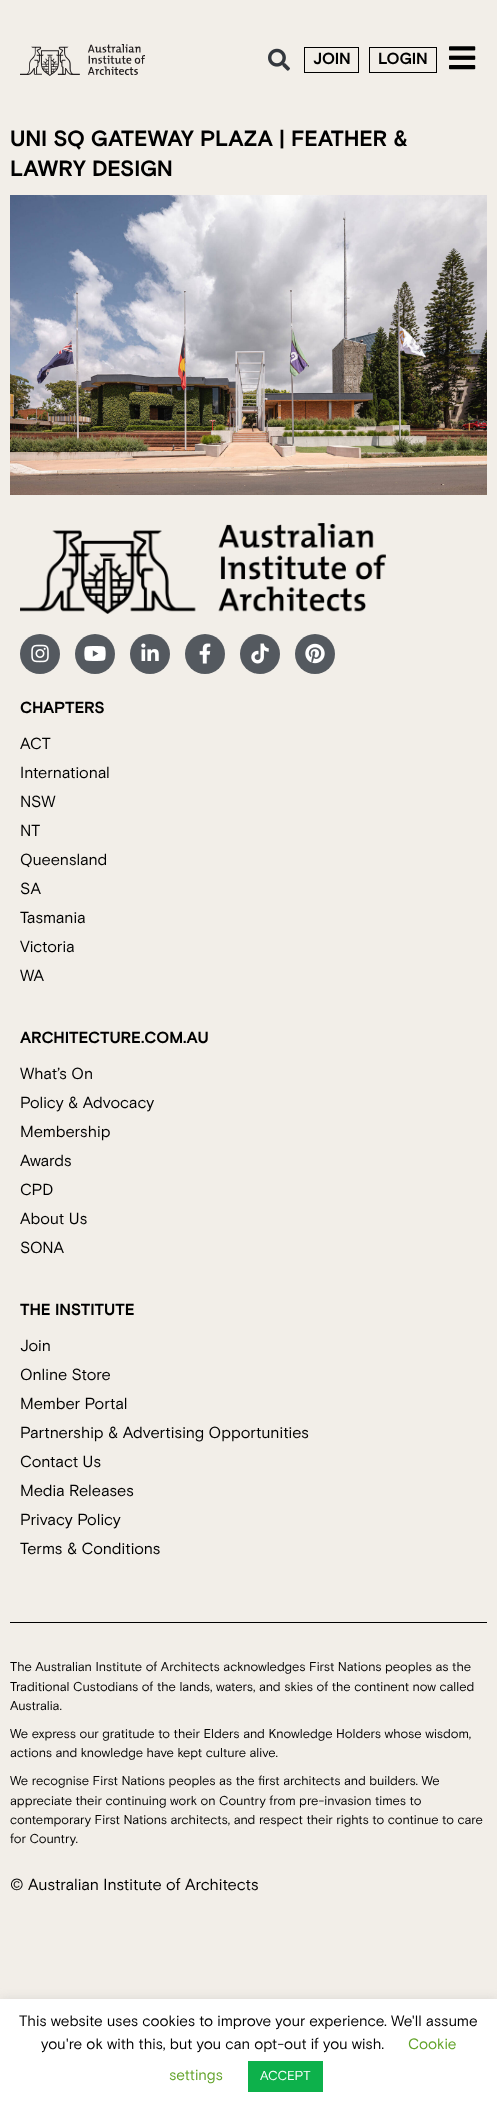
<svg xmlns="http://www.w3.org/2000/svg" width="497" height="2109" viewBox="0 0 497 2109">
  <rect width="100%" height="100%" fill="rgb(242,238,232)"/>
  <image x="20" y="44" width="125" height="32" href="pic1.png"/>
  <image x="268" y="48" width="22" height="23" href="pic2.png"/>
  <rect x="304.5" y="47.5" width="54" height="25" fill="none" stroke="rgb(0,0,0)"/>
  <text x="313" y="64" font-family="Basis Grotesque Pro" font-size="16" font-weight="bold" fill="rgb(0,0,0)">JOIN</text>
  <rect x="369.5" y="47.5" width="67" height="25" fill="none" stroke="rgb(0,0,0)"/>
  <text x="378" y="64" font-family="Basis Grotesque Pro" font-size="16" font-weight="bold" fill="rgb(0,0,0)">LOGIN</text>
  <image x="449" y="46" width="27" height="24" href="pic3.png"/>
  <g font-family="Basis Grotesque Pro" font-size="22" font-weight="bold" fill="rgb(0,0,0)">
    <text>
      <tspan x="10" y="146">UNI SQ GATEWAY PLAZA | FEATHER &amp;</tspan>
      <tspan x="10" y="176">LAWRY DESIGN</tspan>
    </text>
  </g>
  <image x="10" y="195" width="477" height="300" href="pic4.png"/>
  <image x="20" y="523" width="366" height="91" href="pic5.png"/>
  <circle cx="40" cy="654" r="20" fill="rgb(84,89,95)"/>
  <image x="31" y="644" width="18" height="19" href="pic6.png"/>
  <circle cx="95" cy="654" r="20" fill="rgb(84,89,95)"/>
  <image x="84" y="646" width="22" height="15" href="pic7.png"/>
  <circle cx="150" cy="654" r="20" fill="rgb(84,89,95)"/>
  <image x="141" y="643" width="18" height="18" href="pic8.png"/>
  <circle cx="205" cy="654" r="20" fill="rgb(84,89,95)"/>
  <image x="199" y="643" width="12" height="21" href="pic9.png"/>
  <circle cx="260" cy="654" r="20" fill="rgb(84,89,95)"/>
  <image x="251" y="643" width="18" height="21" href="pic10.png"/>
  <circle cx="315" cy="654" r="20" fill="rgb(84,89,95)"/>
  <image x="305" y="643" width="20" height="21" href="pic11.png"/>
  <text x="20" y="713" font-family="Basis Grotesque Pro" font-size="16" font-weight="bold" fill="rgb(0,0,0)">CHAPTERS</text>
  <g font-family="Basis Grotesque Pro" font-size="16" fill="rgb(0,0,0)">
    <text>
      <tspan x="20" y="749">ACT</tspan>
      <tspan x="20" y="778">International</tspan>
      <tspan x="20" y="807">NSW</tspan>
      <tspan x="20" y="836">NT</tspan>
      <tspan x="20" y="865">Queensland</tspan>
      <tspan x="20" y="894">SA</tspan>
      <tspan x="20" y="923">Tasmania</tspan>
      <tspan x="20" y="952">Victoria</tspan>
      <tspan x="20" y="981">WA</tspan>
    </text>
  </g>
  <text x="20" y="1043" font-family="Basis Grotesque Pro" font-size="16" font-weight="bold" fill="rgb(0,0,0)">ARCHITECTURE.COM.AU</text>
  <g font-family="Basis Grotesque Pro" font-size="16" fill="rgb(0,0,0)">
    <text>
      <tspan x="20" y="1079">What’s On</tspan>
      <tspan x="20" y="1108">Policy &amp; Advocacy</tspan>
      <tspan x="20" y="1137">Membership</tspan>
      <tspan x="20" y="1166">Awards</tspan>
      <tspan x="20" y="1195">CPD</tspan>
      <tspan x="20" y="1224">About Us</tspan>
      <tspan x="20" y="1253">SONA</tspan>
    </text>
  </g>
  <text x="20" y="1315" font-family="Basis Grotesque Pro" font-size="16" font-weight="bold" fill="rgb(0,0,0)">THE INSTITUTE</text>
  <g font-family="Basis Grotesque Pro" font-size="16" fill="rgb(0,0,0)">
    <text>
      <tspan x="20" y="1351">Join</tspan>
      <tspan x="20" y="1380">Online Store</tspan>
      <tspan x="20" y="1409">Member Portal</tspan>
      <tspan x="20" y="1438">Partnership &amp; Advertising Opportunities</tspan>
      <tspan x="20" y="1467">Contact Us</tspan>
      <tspan x="20" y="1496">Media Releases</tspan>
      <tspan x="20" y="1525">Privacy Policy</tspan>
      <tspan x="20" y="1554">Terms &amp; Conditions</tspan>
    </text>
  </g>
  <rect x="10" y="1622" width="477" height="1" fill="rgb(0,0,0)"/>
  <g font-family="Basis Grotesque Pro" font-size="12.8" fill="rgb(0,0,0)">
    <text>
      <tspan x="10" y="1671">The Australian Institute of Architects acknowledges First Nations peoples as the</tspan>
      <tspan x="10" y="1691">Traditional Custodians of the lands, waters, and skies of the continent now called</tspan>
      <tspan x="10" y="1710">Australia.</tspan>
    </text>
    <text>
      <tspan x="10" y="1738">We express our gratitude to their Elders and Knowledge Holders whose wisdom,</tspan>
      <tspan x="10" y="1757">actions and knowledge have kept culture alive.</tspan>
    </text>
    <text>
      <tspan x="10" y="1785">We recognise First Nations peoples as the first architects and builders. We</tspan>
      <tspan x="10" y="1805">appreciate their continuing work on Country from pre-invasion times to</tspan>
      <tspan x="10" y="1824">contemporary First Nations architects, and respect their rights to continue to care</tspan>
      <tspan x="10" y="1843">for Country.</tspan>
    </text>
  </g>
  <text x="10" y="1890" font-family="Basis Grotesque Pro" font-size="16" fill="rgb(0,0,0)">© Australian Institute of Architects</text>
  <rect x="0" y="1998" width="497" height="110" fill="rgba(172,171,171,0.3)" filter="blur(5px)"/>
  <rect x="0" y="1999" width="497" height="110" fill="rgb(255,255,255)"/>
  <g font-family="Basis Grotesque Pro" font-size="15" fill="rgb(0,0,0)">
    <text x="19" y="2026">This website uses cookies to improve your experience. We'll assume</text>
    <text x="41" y="2049">you're ok with this, but you can opt-out if you wish.</text>
  </g>
  <g font-family="Basis Grotesque Pro" font-size="15" fill="rgb(98,163,41)">
    <text x="408" y="2049">Cookie</text>
    <text x="169" y="2080">settings</text>
  </g>
  <rect x="248" y="2061" width="75" height="31" fill="rgb(13,177,75)"/>
  <text x="260" y="2080" font-family="Basis Grotesque Pro" font-size="13" fill="rgb(255,255,255)">ACCEPT</text>
</svg>
